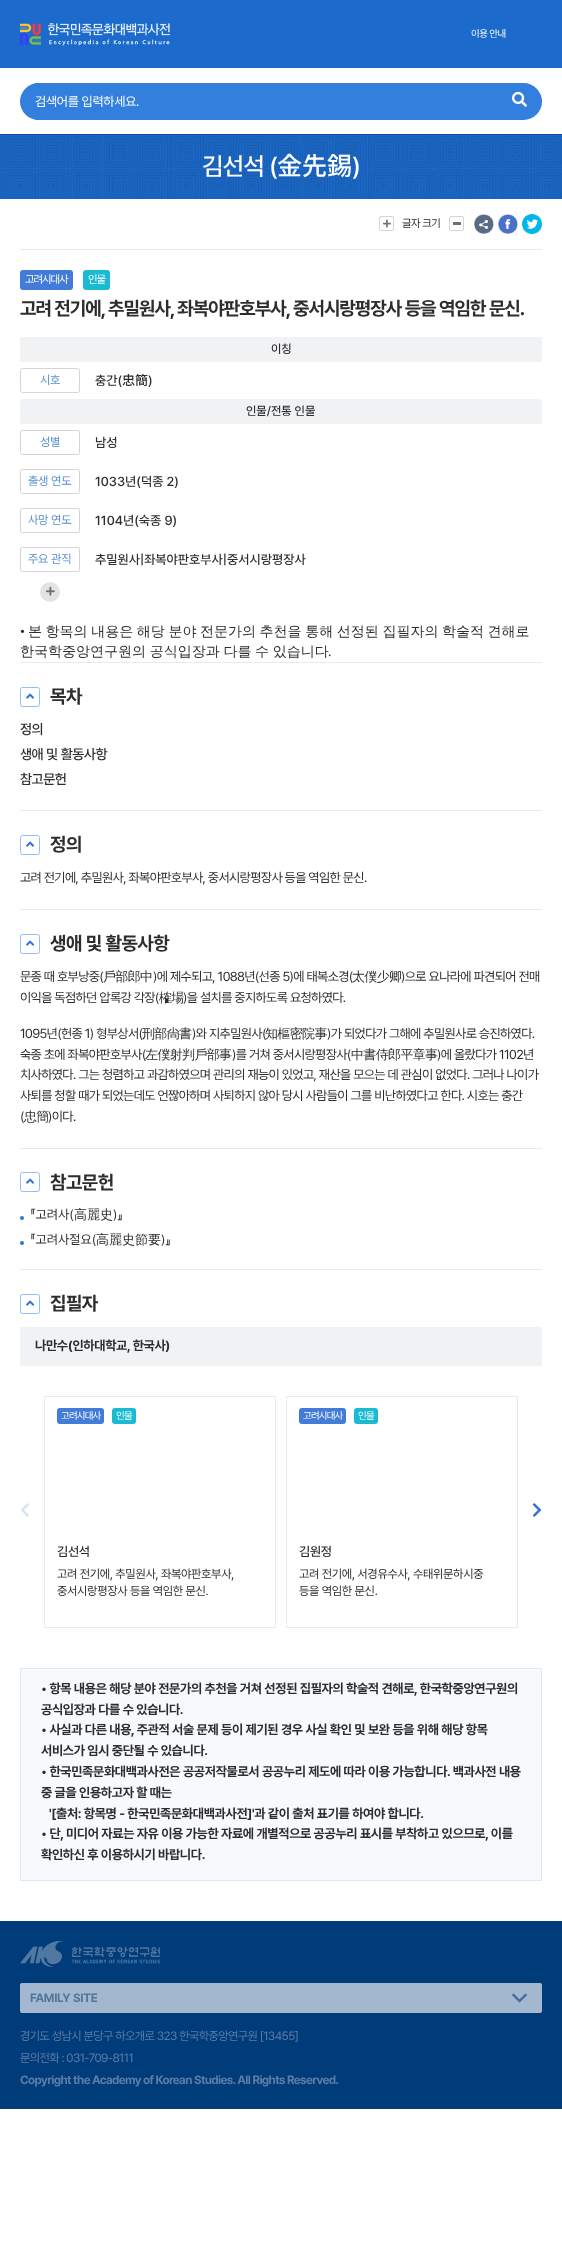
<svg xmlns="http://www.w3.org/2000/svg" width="562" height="2251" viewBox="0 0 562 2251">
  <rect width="100%" height="100%" fill="rgb(255,255,255)"/>
  <rect x="0" y="0" width="562" height="68" fill="rgb(28,107,204)"/>
  <text x="471" y="37" font-family="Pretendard" font-size="10" letter-spacing="-0.5" fill="rgb(255,255,255)">이용 안내</text>
  <image x="20" y="23" width="150" height="23" href="pic1.png"/>
  <rect x="0" y="134" width="562" height="1" fill="rgb(13,72,190)"/>
  <rect x="20" y="83" width="522" height="37" rx="18.5" fill="rgb(51,127,221)"/>
  <rect x="35" y="83" width="3" height="37" fill="rgb(51,127,221)"/>
  <text x="35" y="106" font-family="Pretendard" font-size="13" letter-spacing="-0.33" fill="rgb(255,255,255)">검색어를 입력하세요.</text>
  <image x="512" y="91" width="15" height="16" href="pic2.png"/>
  <image x="0" y="135" width="562" height="64" href="pic3.png"/>
  <text x="202" y="175" font-family="Pretendard" font-size="25" font-weight="500" letter-spacing="-1" fill="rgb(255,255,255)">김선석 (</text>
  <text x="277" y="175" font-family="Noto Sans CJK KR" font-size="25" font-weight="500" fill="rgb(255,255,255)">金先錫</text>
  <text x="352" y="175" font-family="Pretendard" font-size="25" font-weight="500" letter-spacing="-1" fill="rgb(255,255,255)">)</text>
  <rect x="20" y="249" width="522" height="1" fill="rgb(234,234,234)"/>
  <rect x="379.5" y="216.5" width="14" height="14" rx="1.5" fill="none" stroke="rgb(213,213,213)"/>
  <image x="383" y="219" width="8" height="9" href="pic4.png"/>
  <text x="402" y="227" font-family="Pretendard" font-size="11" letter-spacing="-0.5" fill="rgb(38,38,38)">글자 크기</text>
  <rect x="449.5" y="216.5" width="14" height="14" rx="1.5" fill="none" stroke="rgb(213,213,213)"/>
  <rect x="453" y="222" width="8" height="3" fill="rgb(113,113,113)"/>
  <image x="474" y="214" width="20" height="20" href="pic5.png"/>
  <image x="498" y="214" width="20" height="20" href="pic6.png"/>
  <image x="522" y="214" width="20" height="20" href="pic7.png"/>
  <rect x="20" y="270" width="53" height="20" rx="3" fill="rgb(67,123,216)"/>
  <text x="25" y="283" font-family="Pretendard" font-size="11" letter-spacing="-1" fill="rgb(255,255,255)">고려시대사</text>
  <rect x="83" y="270" width="27" height="20" rx="3" fill="rgb(25,186,210)"/>
  <text x="88" y="283" font-family="Pretendard" font-size="11" letter-spacing="-1" fill="rgb(255,255,255)">인물</text>
  <text x="20" y="315" font-family="Pretendard" font-size="19" font-weight="bold" letter-spacing="-0.95" fill="rgb(45,45,45)">고려 전기에, 추밀원사, 좌복야판호부사, 중서시랑평장사 등을 역임한 문신.</text>
  <rect x="20" y="337" width="522" height="25" rx="2.5" fill="rgb(241,242,244)"/>
  <text x="271" y="353" font-family="Pretendard" font-size="12" font-weight="500" fill="rgb(45,45,45)">이칭</text>
  <rect x="20.5" y="368.5" width="59" height="24" rx="2" fill="none" stroke="rgb(213,213,213)"/>
  <text x="40" y="384" font-family="Pretendard" font-size="12" letter-spacing="-0.25" fill="rgb(87,142,205)">시호</text>
  <text x="95" y="385" font-family="Pretendard" font-size="13" font-weight="500" fill="rgb(45,45,45)">충간(</text>
  <text x="122" y="385" font-family="Noto Sans CJK KR" font-size="13" font-weight="500" fill="rgb(45,45,45)">忠簡</text>
  <text x="148" y="385" font-family="Pretendard" font-size="13" font-weight="500" fill="rgb(45,45,45)">)</text>
  <rect x="20" y="399" width="522" height="25" rx="2.5" fill="rgb(241,242,244)"/>
  <text x="246" y="415" font-family="Pretendard" font-size="12" font-weight="500" fill="rgb(45,45,45)">인물/전통 인물</text>
  <rect x="20.5" y="430.5" width="59" height="24" rx="2" fill="none" stroke="rgb(213,213,213)"/>
  <text x="40" y="446" font-family="Pretendard" font-size="12" letter-spacing="-0.25" fill="rgb(87,142,205)">성별</text>
  <text x="95" y="447" font-family="Pretendard" font-size="13" font-weight="500" fill="rgb(45,45,45)">남성</text>
  <rect x="20.5" y="469.5" width="59" height="24" rx="2" fill="none" stroke="rgb(213,213,213)"/>
  <text x="28" y="485" font-family="Pretendard" font-size="12" letter-spacing="-0.25" fill="rgb(87,142,205)">출생 연도</text>
  <text x="95" y="486" font-family="Pretendard" font-size="13" font-weight="500" fill="rgb(45,45,45)">1033년(덕종 2)</text>
  <rect x="20.5" y="508.5" width="59" height="24" rx="2" fill="none" stroke="rgb(213,213,213)"/>
  <text x="28" y="524" font-family="Pretendard" font-size="12" letter-spacing="-0.25" fill="rgb(87,142,205)">사망 연도</text>
  <text x="95" y="525" font-family="Pretendard" font-size="13" font-weight="500" fill="rgb(45,45,45)">1104년(숙종 9)</text>
  <rect x="20.5" y="547.5" width="59" height="24" rx="2" fill="none" stroke="rgb(213,213,213)"/>
  <text x="28" y="563" font-family="Pretendard" font-size="12" letter-spacing="-0.25" fill="rgb(87,142,205)">주요 관직</text>
  <text x="95" y="564" font-family="Pretendard" font-size="13" font-weight="500" fill="rgb(45,45,45)">추밀원사|좌복야판호부사|중서시랑평장사</text>
  <circle cx="50" cy="592" r="10" fill="rgb(227,227,227)"/>
  <image x="46" y="586" width="9" height="10" href="pic8.png"/>
  <text x="20" y="636" font-family="Liberation Serif" font-size="14" fill="rgb(45,45,45)">•</text>
  <g font-family="WenQuanYi Zen Hei" font-size="14" font-weight="500" fill="rgb(45,45,45)">
    <text x="28" y="636" word-spacing="-0.6">본 항목의 내용은 해당 분야 전문가의 추천을 통해 선정된 집필자의 학술적 견해로</text>
    <text x="20" y="656" word-spacing="-0.5">한국학중앙연구원의 공식입장과 다를 수 있습니다</text>
  </g>
  <text x="328" y="656" font-family="Liberation Serif" font-size="14" fill="rgb(45,45,45)">.</text>
  <rect x="20" y="662" width="522" height="1" fill="rgb(234,234,234)"/>
  <rect x="20.5" y="687.5" width="19" height="19" rx="2" fill="none" stroke="rgb(143,190,255)"/>
  <image x="26" y="693" width="9" height="6" href="pic9.png"/>
  <text x="50" y="703" font-family="Pretendard" font-size="19" font-weight="bold" letter-spacing="-0.5" fill="rgb(45,45,45)">목차</text>
  <g font-family="Pretendard" font-size="14" font-weight="500" letter-spacing="-0.5" fill="rgb(45,45,45)">
    <text>
      <tspan x="20" y="734">정의</tspan>
      <tspan x="20" y="759">생애 및 활동사항</tspan>
      <tspan x="20" y="784">참고문헌</tspan>
    </text>
  </g>
  <rect x="20" y="810" width="522" height="1" fill="rgb(234,234,234)"/>
  <rect x="20.5" y="835.5" width="19" height="19" rx="2" fill="none" stroke="rgb(143,190,255)"/>
  <image x="26" y="841" width="9" height="6" href="pic9.png"/>
  <text x="50" y="851" font-family="Pretendard" font-size="19" font-weight="bold" letter-spacing="-0.5" fill="rgb(45,45,45)">정의</text>
  <text x="20" y="882" font-family="Pretendard" font-size="13" letter-spacing="-0.65" fill="rgb(45,45,45)">고려 전기에, 추밀원사, 좌복야판호부사, 중서시랑평장사 등을 역임한 문신.</text>
  <rect x="20" y="909" width="522" height="1" fill="rgb(234,234,234)"/>
  <rect x="20.5" y="934.5" width="19" height="19" rx="2" fill="none" stroke="rgb(143,190,255)"/>
  <image x="26" y="940" width="9" height="6" href="pic9.png"/>
  <text x="50" y="950" font-family="Pretendard" font-size="19" font-weight="bold" letter-spacing="-0.5" fill="rgb(45,45,45)">생애 및 활동사항</text>
  <text x="20" y="981" font-family="Pretendard" font-size="13" letter-spacing="-0.65" fill="rgb(45,45,45)">문종 때 호부낭중(</text>
  <text x="103" y="981" font-family="WenQuanYi Zen Hei" font-size="13" font-weight="500" letter-spacing="-0.65" fill="rgb(45,45,45)">戶部郎中</text>
  <text x="153" y="981" font-family="Pretendard" font-size="13" letter-spacing="-0.65" fill="rgb(45,45,45)">)에 제수되고, 1088년(선종 5)에 태복소경(</text>
  <text x="352" y="981" font-family="WenQuanYi Zen Hei" font-size="13" font-weight="500" letter-spacing="-0.65" fill="rgb(45,45,45)">太僕少卿</text>
  <g font-family="Pretendard" font-size="13" letter-spacing="-0.65" fill="rgb(45,45,45)">
    <text x="401" y="981">)으로 요나라에 파견되어 전매</text>
    <text x="20" y="1002">이익을 독점하던 압록강 각장(</text>
  </g>
  <text x="159" y="1002" font-family="WenQuanYi Zen Hei" font-size="13" font-weight="500" letter-spacing="-0.65" fill="rgb(45,45,45)">榷場</text>
  <g font-family="Pretendard" font-size="13" letter-spacing="-0.65" fill="rgb(45,45,45)">
    <text x="183" y="1002">)을 설치를 중지하도록 요청하였다.</text>
    <text x="20" y="1038">1095년(헌종 1) 형부상서(</text>
  </g>
  <text x="142" y="1038" font-family="WenQuanYi Zen Hei" font-size="13" font-weight="500" letter-spacing="-0.65" fill="rgb(45,45,45)">刑部尙書</text>
  <text x="192" y="1038" font-family="Pretendard" font-size="13" letter-spacing="-0.65" fill="rgb(45,45,45)">)와 지추밀원사(</text>
  <text x="265" y="1038" font-family="WenQuanYi Zen Hei" font-size="13" font-weight="500" letter-spacing="-0.65" fill="rgb(45,45,45)">知樞密院事</text>
  <g font-family="Pretendard" font-size="13" letter-spacing="-0.65" fill="rgb(45,45,45)">
    <text x="327" y="1038">)가 되었다가 그해에 추밀원사로 승진하였다.</text>
    <text x="20" y="1059">숙종 초에 좌복야판호부사(</text>
  </g>
  <text x="145" y="1059" font-family="WenQuanYi Zen Hei" font-size="13" font-weight="500" letter-spacing="-0.65" fill="rgb(45,45,45)">左僕射判戶部事</text>
  <text x="232" y="1059" font-family="Pretendard" font-size="13" letter-spacing="-0.65" fill="rgb(45,45,45)">)를 거쳐 중서시랑평장사(</text>
  <text x="351" y="1059" font-family="WenQuanYi Zen Hei" font-size="13" font-weight="500" letter-spacing="-0.65" fill="rgb(45,45,45)">中書侍郎平章事</text>
  <g font-family="Pretendard" font-size="13" letter-spacing="-0.65" fill="rgb(45,45,45)">
    <text x="437" y="1059">)에 올랐다가 1102년</text>
    <text>
      <tspan x="20" y="1079">치사하였다. 그는 청렴하고 과감하였으며 관리의 재능이 있었고, 재산을 모으는 데 관심이 없었다. 그러나 나이가</tspan>
      <tspan x="20" y="1100">사퇴를 청할 때가 되었는데도 언짢아하며 사퇴하지 않아 당시 사람들이 그를 비난하였다고 한다. 시호는 충간</tspan>
      <tspan x="20" y="1121">(</tspan>
    </text>
  </g>
  <text x="24" y="1121" font-family="WenQuanYi Zen Hei" font-size="13" font-weight="500" letter-spacing="-0.65" fill="rgb(45,45,45)">忠簡</text>
  <text x="48" y="1121" font-family="Pretendard" font-size="13" letter-spacing="-0.65" fill="rgb(45,45,45)">)이다.</text>
  <rect x="20" y="1148" width="522" height="1" fill="rgb(234,234,234)"/>
  <rect x="20.5" y="1172.5" width="19" height="19" rx="2" fill="none" stroke="rgb(143,190,255)"/>
  <image x="26" y="1178" width="9" height="6" href="pic9.png"/>
  <text x="50" y="1189" font-family="Pretendard" font-size="19" font-weight="bold" letter-spacing="-0.5" fill="rgb(45,45,45)">참고문헌</text>
  <circle cx="22" cy="1218" r="2" fill="rgb(42,117,213)"/>
  <text x="30" y="1219" font-family="Pretendard" font-size="13" fill="rgb(45,45,45)">『고려사(</text>
  <text x="74" y="1219" font-family="WenQuanYi Zen Hei" font-size="13" font-weight="500" fill="rgb(45,45,45)">高麗史</text>
  <text x="113" y="1219" font-family="Pretendard" font-size="13" fill="rgb(45,45,45)">)』</text>
  <circle cx="22" cy="1243" r="2" fill="rgb(42,117,213)"/>
  <text x="30" y="1244" font-family="Pretendard" font-size="13" fill="rgb(45,45,45)">『고려사절요(</text>
  <text x="96" y="1244" font-family="WenQuanYi Zen Hei" font-size="13" font-weight="500" fill="rgb(45,45,45)">高麗史節要</text>
  <text x="161" y="1244" font-family="Pretendard" font-size="13" fill="rgb(45,45,45)">)』</text>
  <rect x="20" y="1269" width="522" height="1" fill="rgb(234,234,234)"/>
  <rect x="20.5" y="1294.5" width="19" height="19" rx="2" fill="none" stroke="rgb(143,190,255)"/>
  <image x="26" y="1300" width="9" height="6" href="pic9.png"/>
  <text x="50" y="1310" font-family="Pretendard" font-size="19" font-weight="bold" letter-spacing="-0.5" fill="rgb(45,45,45)">집필자</text>
  <rect x="20" y="1327" width="522" height="39" fill="rgb(241,242,244)"/>
  <text x="35" y="1350" font-family="Pretendard" font-size="13" font-weight="bold" letter-spacing="-0.33" fill="rgb(45,45,45)">나만수(인하대학교, 한국사)</text>
  <image x="21" y="1503" width="8" height="14" href="pic10.png"/>
  <rect x="44.5" y="1396.5" width="231" height="231" fill="none" stroke="rgb(235,235,235)"/>
  <rect x="57" y="1408" width="47" height="16" rx="3" fill="rgb(67,123,216)"/>
  <text x="61" y="1419" font-family="Pretendard" font-size="10" letter-spacing="-0.75" fill="rgb(255,255,255)">고려시대사</text>
  <rect x="112" y="1408" width="24" height="16" rx="3" fill="rgb(25,186,210)"/>
  <text x="116" y="1419" font-family="Pretendard" font-size="10" letter-spacing="-0.75" fill="rgb(255,255,255)">인물</text>
  <text x="57" y="1556" font-family="Pretendard" font-size="13" font-weight="500" letter-spacing="-0.33" fill="rgb(45,45,45)">김선석</text>
  <g font-family="Pretendard" font-size="12" letter-spacing="-0.33" fill="rgb(45,45,45)">
    <text>
      <tspan x="57" y="1578">고려 전기에, 추밀원사, 좌복야판호부사,</tspan>
      <tspan x="57" y="1595">중서시랑평장사 등을 역임한 문신.</tspan>
    </text>
  </g>
  <rect x="286.5" y="1396.5" width="231" height="231" fill="none" stroke="rgb(235,235,235)"/>
  <rect x="299" y="1408" width="47" height="16" rx="3" fill="rgb(67,123,216)"/>
  <text x="303" y="1419" font-family="Pretendard" font-size="10" letter-spacing="-0.75" fill="rgb(255,255,255)">고려시대사</text>
  <rect x="354" y="1408" width="24" height="16" rx="3" fill="rgb(25,186,210)"/>
  <text x="358" y="1419" font-family="Pretendard" font-size="10" letter-spacing="-0.75" fill="rgb(255,255,255)">인물</text>
  <text x="299" y="1556" font-family="Pretendard" font-size="13" font-weight="500" letter-spacing="-0.33" fill="rgb(45,45,45)">김원정</text>
  <g font-family="Pretendard" font-size="12" letter-spacing="-0.33" fill="rgb(45,45,45)">
    <text>
      <tspan x="299" y="1578">고려 전기에, 서경유수사, 수태위문하시중</tspan>
      <tspan x="299" y="1595">등을 역임한 문신.</tspan>
    </text>
  </g>
  <image x="532" y="1503" width="10" height="14" href="pic11.png"/>
  <rect x="20.5" y="1668.5" width="521" height="212" fill="rgb(247,249,252)" stroke="rgb(221,233,246)"/>
  <g font-family="Pretendard" font-size="13" font-weight="bold" letter-spacing="-0.33" fill="rgb(45,45,45)">
    <text>
      <tspan x="41" y="1693">• 항목 내용은 해당 분야 전문가의 추천을 거쳐 선정된 집필자의 학술적 견해로, 한국학중앙연구원의</tspan>
      <tspan x="41" y="1714">공식입장과 다를 수 있습니다.</tspan>
      <tspan x="41" y="1734">• 사실과 다른 내용, 주관적 서술 문제 등이 제기된 경우 사실 확인 및 보완 등을 위해 해당 항목</tspan>
      <tspan x="41" y="1755">서비스가 임시 중단될 수 있습니다.</tspan>
      <tspan x="41" y="1776">• 한국민족문화대백과사전은 공공저작물로서 공공누리 제도에 따라 이용 가능합니다. 백과사전 내용</tspan>
      <tspan x="41" y="1797">중 글을 인용하고자 할 때는</tspan>
    </text>
    <text x="49" y="1818">'[출처: 항목명 - 한국민족문화대백과사전]'과 같이 출처 표기를 하여야 합니다.</text>
    <text>
      <tspan x="41" y="1838">• 단, 미디어 자료는 자유 이용 가능한 자료에 개별적으로 공공누리 표시를 부착하고 있으므로, 이를</tspan>
      <tspan x="41" y="1859">확인하신 후 이용하시기 바랍니다.</tspan>
    </text>
  </g>
  <rect x="0" y="1921" width="562" height="188" fill="rgb(0,59,122)"/>
  <image x="20" y="1941" width="140" height="26" href="pic12.png"/>
  <rect x="20" y="1983" width="522" height="30" rx="2" fill="rgb(163,184,207)"/>
  <image x="512" y="1993" width="15" height="10" href="pic13.png"/>
  <text x="30" y="2002" font-family="Pretendard" font-size="12" font-weight="bold" letter-spacing="-0.25" fill="rgb(81,118,157)">FAMILY SITE</text>
  <g font-family="Pretendard" font-size="12" letter-spacing="-0.6" fill="rgb(90,125,168)">
    <text>
      <tspan x="20" y="2040">경기도 성남시 분당구 하오개로 323 한국학중앙연구원 [13455]</tspan>
      <tspan x="20" y="2062">문의전화 : 031-709-8111</tspan>
    </text>
  </g>
  <text x="20" y="2084" font-family="Pretendard" font-size="12" font-weight="bold" letter-spacing="-0.6" fill="rgb(90,125,168)">Copyright the Academy of Korean Studies. All Rights Reserved.</text>
</svg>
